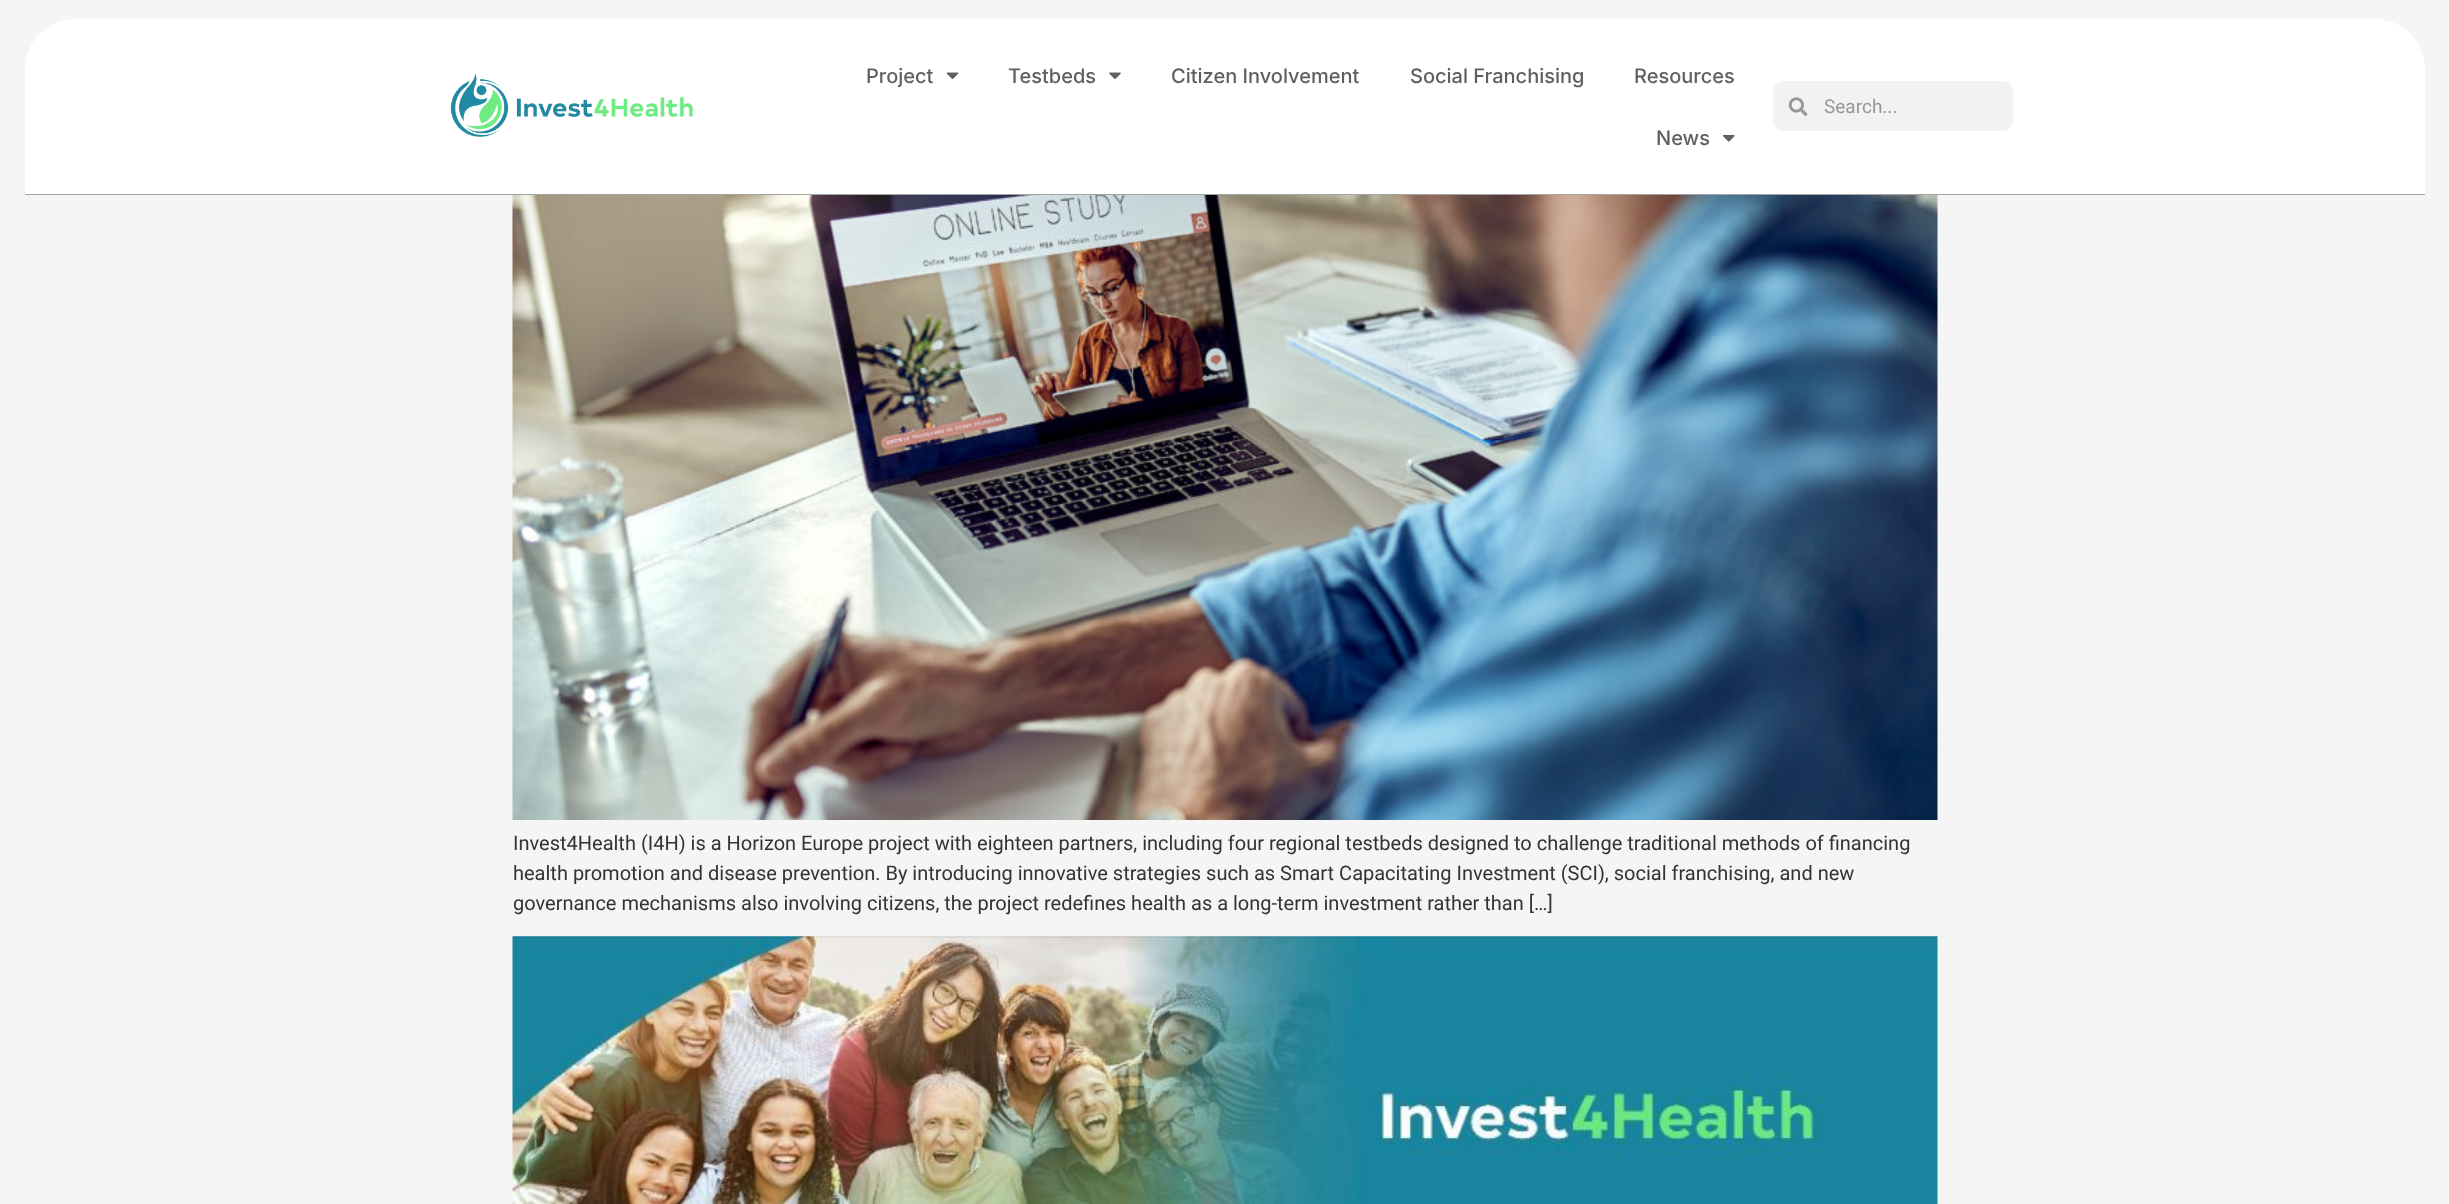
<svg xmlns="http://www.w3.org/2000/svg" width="2449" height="1204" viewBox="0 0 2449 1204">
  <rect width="100%" height="100%" fill="rgb(245,245,245)"/>
  <path d="M75 19H2375C2402.5 19 2425 41.5 2425 69V195H25V69C25 41.5 47.5 19 75 19Z" fill="rgb(255,255,255)"/>
  <rect x="25" y="194" width="2400" height="1" fill="rgb(163,163,163)"/>
  <image x="450" y="73" width="243" height="64" href="pic1.png"/>
  <text x="866" y="83" font-family="Inter" font-size="20" font-weight="500" fill="rgb(95,95,95)">Project</text>
  <image x="946" y="72" width="13" height="7" href="pic2.png"/>
  <text x="1008" y="83" font-family="Inter" font-size="20" font-weight="500" fill="rgb(95,95,95)">Testbeds</text>
  <image x="1109" y="72" width="12" height="7" href="pic3.png"/>
  <g font-family="Inter" font-size="20" font-weight="500" fill="rgb(95,95,95)">
    <text x="1171" y="83">Citizen Involvement</text>
    <text x="1410" y="83">Social Franchising</text>
    <text x="1634" y="83">Resources</text>
    <text x="1656" y="145">News</text>
  </g>
  <image x="1723" y="135" width="12" height="7" href="pic4.png"/>
  <rect x="1773" y="81" width="240" height="50" rx="11" fill="rgb(241,242,243)"/>
  <image x="1788" y="97" width="20" height="19" href="pic5.png"/>
  <text x="1824" y="113" font-family="Roboto" font-size="19" fill="rgb(151,151,152)">Search...</text>
  <image x="512" y="195" width="1426" height="625" href="pic6.png"/>
  <g font-family="Roboto" font-size="20" fill="rgb(51,51,51)">
    <text>
      <tspan x="513" y="850">Invest4Health (I4H) is a Horizon Europe project with eighteen partners, including four regional testbeds designed to challenge traditional methods of financing</tspan>
      <tspan x="513" y="880">health promotion and disease prevention. By introducing innovative strategies such as Smart Capacitating Investment (SCI), social franchising, and new</tspan>
      <tspan x="513" y="910">governance mechanisms also involving citizens, the project redefines health as a long-term investment rather than […]</tspan>
    </text>
  </g>
  <image x="512" y="936" width="1426" height="268" href="pic7.png"/>
</svg>
